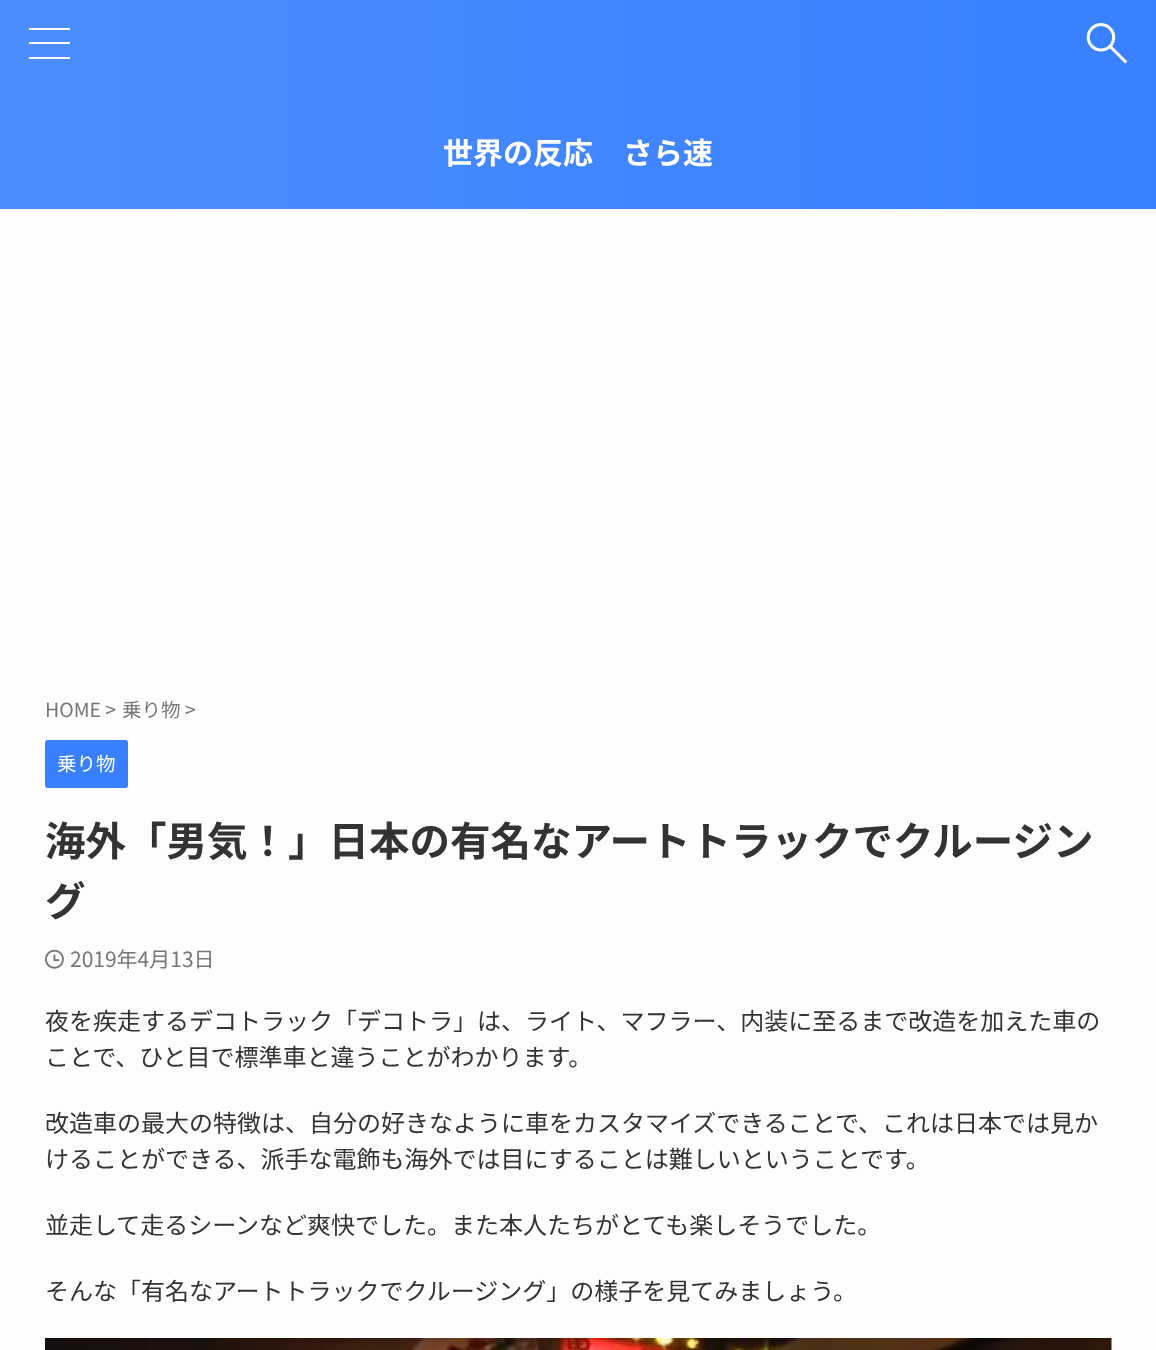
<svg xmlns="http://www.w3.org/2000/svg" width="1156" height="1350" viewBox="0 0 1156 1350">
  <defs>
    <linearGradient id="g1" gradientUnits="userSpaceOnUse" x1="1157" y1="104" x2="0" y2="104"><stop offset="0" stop-color="rgb(56,128,255)"/><stop offset="1" stop-color="rgb(76,141,255)"/></linearGradient>
  </defs>
  <rect width="100%" height="100%" fill="rgb(253,253,253)"/>
  <rect x="0" y="0" width="1156" height="209" fill="url(#g1)"/>
  <path d="M29 28H70V30H29ZM29 42H70V44H29ZM29 57H70V59H29Z" fill="rgb(255,255,255)"/>
  <image x="1086" y="23" width="42" height="41" href="pic1.png"/>
  <text x="443" y="164" font-family="Noto Sans JP" font-size="30" font-weight="bold" fill="rgb(255,255,255)">世界の反応　さら速</text>
  <g font-family="Noto Sans JP" font-size="19.5" fill="rgb(119,119,119)">
    <text x="45" y="717">HOME &gt;</text>
    <text x="122" y="717">乗り物 &gt;</text>
  </g>
  <rect x="45" y="740" width="83" height="48" rx="3" fill="rgb(56,128,255)"/>
  <text x="57" y="771" font-family="Noto Sans JP" font-size="19.5" fill="rgb(255,255,255)">乗り物</text>
  <g font-family="Noto Sans JP" font-size="40.5" font-weight="bold" fill="rgb(51,51,51)">
    <text>
      <tspan x="45" y="856">海外「男気！」日本の有名なアートトラックでクルージン</tspan>
      <tspan x="45" y="916">グ</tspan>
    </text>
  </g>
  <image x="45" y="949" width="19" height="20" href="pic2.png"/>
  <text x="70" y="967" font-family="Noto Sans JP" font-size="21" fill="rgb(119,119,119)">2019年4月13日</text>
  <g font-family="Noto Sans JP" font-size="24" fill="rgb(51,51,51)">
    <text>
      <tspan x="45" y="1030">夜を疾走するデコトラック「デコトラ」は、ライト、マフラー、内装に至るまで改造を加えた車の</tspan>
      <tspan x="45" y="1066">ことで、ひと目で標準車と違うことがわかります。</tspan>
    </text>
    <text>
      <tspan x="45" y="1132">改造車の最大の特徴は、自分の好きなように車をカスタマイズできることで、これは日本では見か</tspan>
      <tspan x="45" y="1168">けることができる、派手な電飾も海外では目にすることは難しいということです。</tspan>
    </text>
    <text x="45" y="1234">並走して走るシーンなど爽快でした。また本人たちがとても楽しそうでした。</text>
    <text x="45" y="1300">そんな「有名なアートトラックでクルージング」の様子を見てみましょう。</text>
  </g>
  <image x="45" y="1338" width="1067" height="12" href="pic3.png"/>
</svg>
